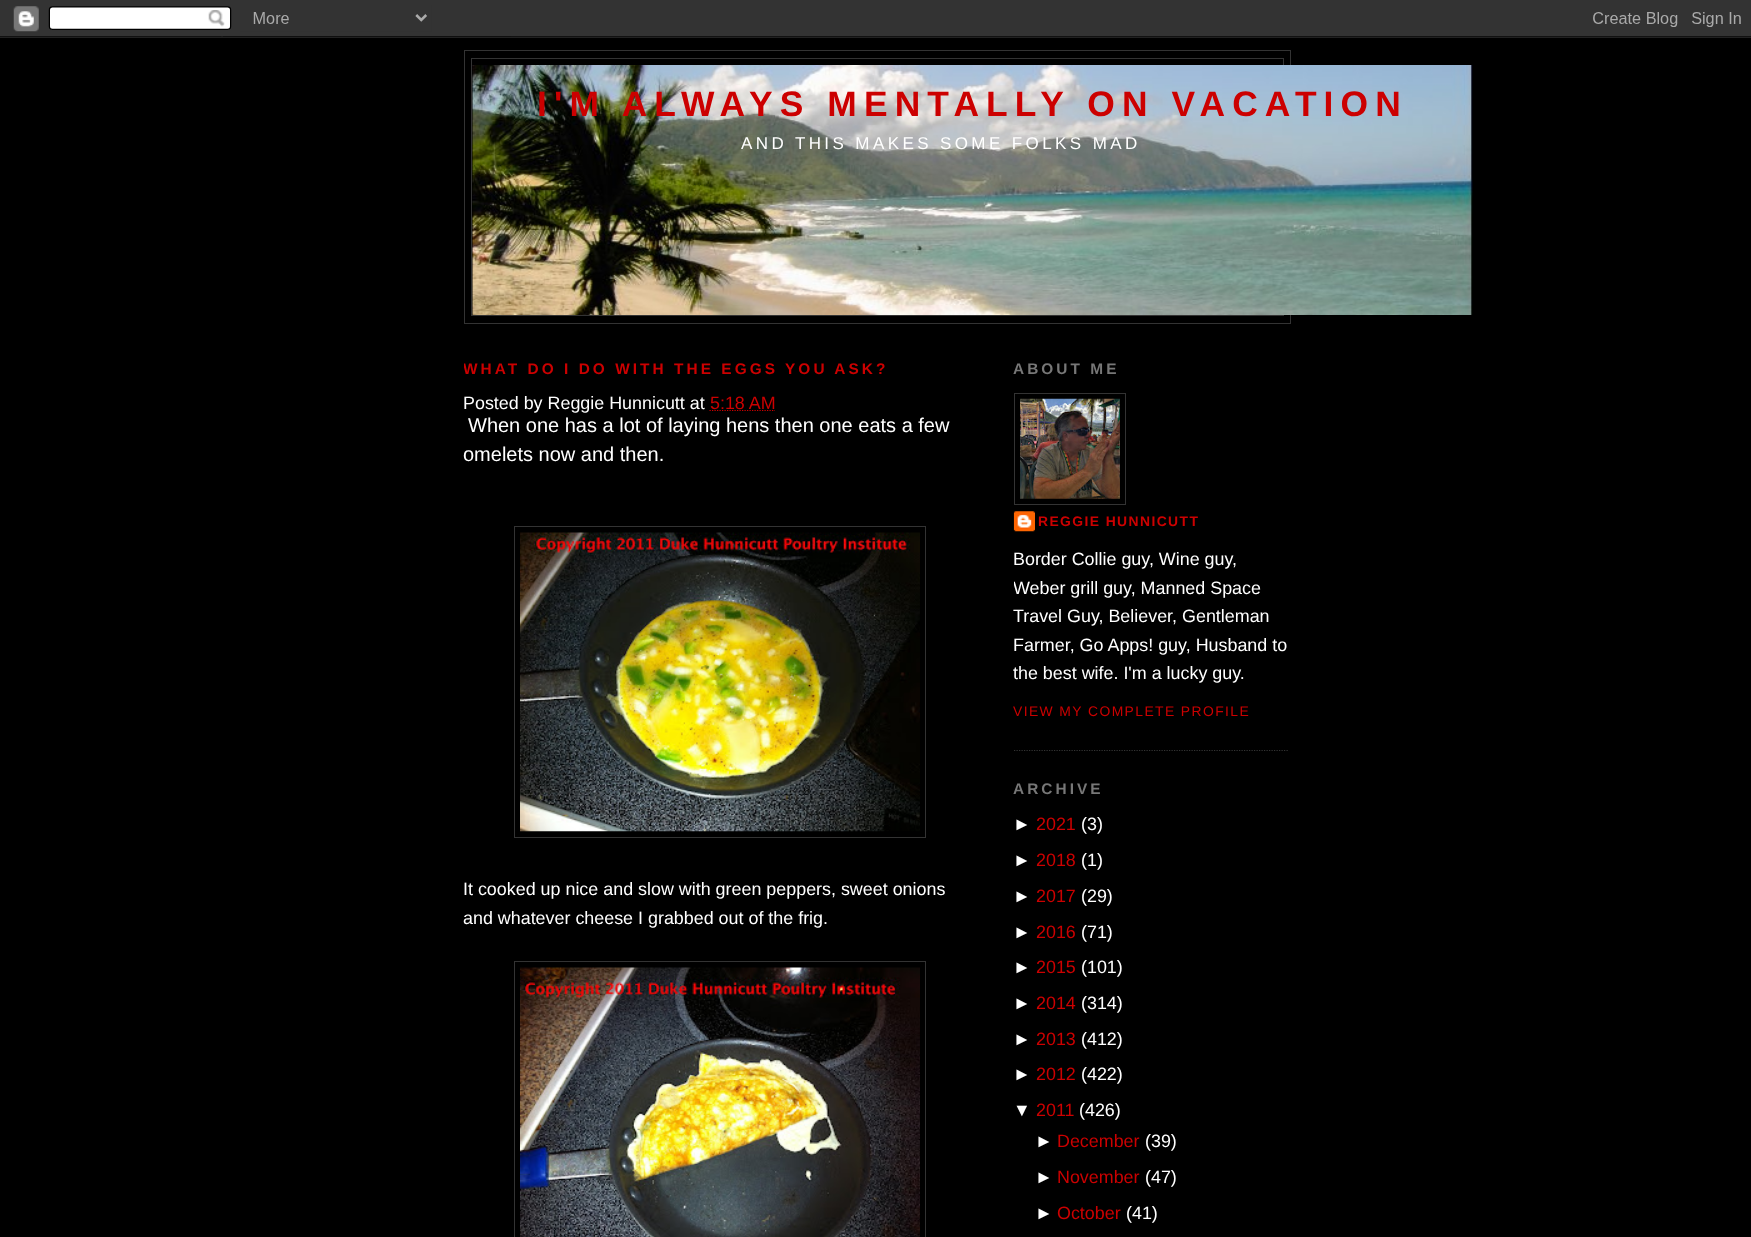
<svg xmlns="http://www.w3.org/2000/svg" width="1751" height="1237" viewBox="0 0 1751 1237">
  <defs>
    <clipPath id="clip1"><rect x="464" y="336" width="512" height="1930"/></clipPath>
    <clipPath id="clip2"><rect x="1014" y="336" width="275" height="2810"/></clipPath>
  </defs>
  <rect width="100%" height="100%" fill="rgb(0,0,0)"/>
  <image x="0" y="0" width="1751" height="38" href="pic1.png"/>
  <rect x="464.5" y="50.5" width="826" height="273" fill="none" stroke="rgb(51,51,51)"/>
  <rect x="471.5" y="58.5" width="812" height="257" fill="none" stroke="rgb(51,51,51)"/>
  <image x="472" y="65" width="1001" height="250" href="pic2.png"/>
  <text x="537" y="116" font-family="Liberation Sans" font-size="35.4" font-weight="bold" letter-spacing="7.1" fill="rgb(204,0,0)">I'M ALWAYS MENTALLY ON VACATION</text>
  <text x="741" y="149" font-family="Liberation Sans" font-size="17" letter-spacing="3.4" fill="rgb(255,255,255)">AND THIS MAKES SOME FOLKS MAD</text>
  <g clip-path="url(#clip1)">
    <text x="463" y="374" font-family="Liberation Sans" font-size="15.4" font-weight="bold" letter-spacing="3.05" fill="rgb(204,0,0)">WHAT DO I DO WITH THE EGGS YOU ASK?</text>
  </g>
  <text x="463" y="409" font-family="Liberation Sans" font-size="17.9" fill="rgb(255,255,255)">Posted by Reggie Hunnicutt at</text>
  <path d="M709.5 410.5H775" fill="none" stroke="rgb(204,0,0)" stroke-width="1.2" stroke-dasharray="1.25 1.25"/>
  <text x="710" y="409" font-family="Liberation Sans" font-size="17.9" fill="rgb(204,0,0)">5:18 AM</text>
  <g font-family="Liberation Sans" font-size="20" fill="rgb(255,255,255)">
    <text x="468" y="432">When one has a lot of laying hens then one eats a few</text>
    <text x="463" y="461">omelets now and then.</text>
  </g>
  <rect x="514.5" y="526.5" width="411" height="311" fill="none" stroke="rgb(51,51,51)"/>
  <image x="520" y="532" width="400" height="300" href="pic3.png"/>
  <g font-family="Liberation Sans" font-size="17.9" fill="rgb(255,255,255)">
    <text>
      <tspan x="463" y="895">It cooked up nice and slow with green peppers, sweet onions</tspan>
      <tspan x="463" y="924">and whatever cheese I grabbed out of the frig.</tspan>
    </text>
  </g>
  <rect x="514.5" y="961.5" width="411" height="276" fill="none" stroke="rgb(51,51,51)"/>
  <image x="520" y="967" width="400" height="270" href="pic4.png"/>
  <path d="M1014 750.5H1289" fill="none" stroke="rgb(51,51,51)" stroke-width="1.2" stroke-dasharray="1.25 1.25"/>
  <text x="1013" y="374" font-family="Liberation Sans" font-size="15.4" font-weight="bold" letter-spacing="3.05" fill="rgb(119,119,119)">ABOUT ME</text>
  <rect x="1014.5" y="393.5" width="111" height="111" fill="none" stroke="rgb(51,51,51)"/>
  <image x="1020" y="398" width="100" height="101" href="pic5.png"/>
  <image x="1013" y="511" width="22" height="21" href="pic6.png"/>
  <text x="1038" y="526" font-family="Liberation Sans" font-size="13.9" font-weight="bold" letter-spacing="1.4" fill="rgb(204,0,0)">REGGIE HUNNICUTT</text>
  <text x="1013" y="565" font-family="Liberation Sans" font-size="17.9" fill="rgb(255,255,255)">Border Collie guy, Wine guy,</text>
  <g clip-path="url(#clip2)">
    <text x="1013" y="594" font-family="Liberation Sans" font-size="17.9" fill="rgb(255,255,255)">Weber grill guy, Manned Space</text>
  </g>
  <g font-family="Liberation Sans" font-size="17.9" fill="rgb(255,255,255)">
    <text>
      <tspan x="1013" y="622">Travel Guy, Believer, Gentleman</tspan>
      <tspan x="1013" y="651">Farmer, Go Apps! guy, Husband to</tspan>
      <tspan x="1013" y="679">the best wife. I'm a lucky guy.</tspan>
    </text>
  </g>
  <text x="1013" y="716" font-family="Liberation Sans" font-size="13.9" letter-spacing="1.4" fill="rgb(204,0,0)">VIEW MY COMPLETE PROFILE</text>
  <text x="1013" y="794" font-family="Liberation Sans" font-size="15.4" font-weight="bold" letter-spacing="3.05" fill="rgb(119,119,119)">ARCHIVE</text>
  <text x="1013" y="830" font-family="Liberation Sans" font-size="17.9" fill="rgb(255,255,255)">►</text>
  <text x="1036" y="830" font-family="Liberation Sans" font-size="17.9" fill="rgb(204,0,0)">2021</text>
  <g font-family="Liberation Sans" font-size="17.9" fill="rgb(255,255,255)">
    <text x="1081" y="830">(3)</text>
    <text x="1013" y="866">►</text>
  </g>
  <text x="1036" y="866" font-family="Liberation Sans" font-size="17.9" fill="rgb(204,0,0)">2018</text>
  <g font-family="Liberation Sans" font-size="17.9" fill="rgb(255,255,255)">
    <text x="1081" y="866">(1)</text>
    <text x="1013" y="902">►</text>
  </g>
  <text x="1036" y="902" font-family="Liberation Sans" font-size="17.9" fill="rgb(204,0,0)">2017</text>
  <g font-family="Liberation Sans" font-size="17.9" fill="rgb(255,255,255)">
    <text x="1081" y="902">(29)</text>
    <text x="1013" y="938">►</text>
  </g>
  <text x="1036" y="938" font-family="Liberation Sans" font-size="17.9" fill="rgb(204,0,0)">2016</text>
  <g font-family="Liberation Sans" font-size="17.9" fill="rgb(255,255,255)">
    <text x="1081" y="938">(71)</text>
    <text x="1013" y="973">►</text>
  </g>
  <text x="1036" y="973" font-family="Liberation Sans" font-size="17.9" fill="rgb(204,0,0)">2015</text>
  <g font-family="Liberation Sans" font-size="17.9" fill="rgb(255,255,255)">
    <text x="1081" y="973">(101)</text>
    <text x="1013" y="1009">►</text>
  </g>
  <text x="1036" y="1009" font-family="Liberation Sans" font-size="17.9" fill="rgb(204,0,0)">2014</text>
  <g font-family="Liberation Sans" font-size="17.9" fill="rgb(255,255,255)">
    <text x="1081" y="1009">(314)</text>
    <text x="1013" y="1045">►</text>
  </g>
  <text x="1036" y="1045" font-family="Liberation Sans" font-size="17.9" fill="rgb(204,0,0)">2013</text>
  <g font-family="Liberation Sans" font-size="17.9" fill="rgb(255,255,255)">
    <text x="1081" y="1045">(412)</text>
    <text x="1013" y="1080">►</text>
  </g>
  <text x="1036" y="1080" font-family="Liberation Sans" font-size="17.9" fill="rgb(204,0,0)">2012</text>
  <g font-family="Liberation Sans" font-size="17.9" fill="rgb(255,255,255)">
    <text x="1081" y="1080">(422)</text>
    <text x="1013" y="1116">▼</text>
  </g>
  <text x="1036" y="1116" font-family="Liberation Sans" font-size="17.9" fill="rgb(204,0,0)">2011</text>
  <g font-family="Liberation Sans" font-size="17.9" fill="rgb(255,255,255)">
    <text x="1079" y="1116">(426)</text>
    <text x="1035" y="1147">►</text>
  </g>
  <text x="1057" y="1147" font-family="Liberation Sans" font-size="17.9" fill="rgb(204,0,0)">December</text>
  <g font-family="Liberation Sans" font-size="17.9" fill="rgb(255,255,255)">
    <text x="1145" y="1147">(39)</text>
    <text x="1035" y="1183">►</text>
  </g>
  <text x="1057" y="1183" font-family="Liberation Sans" font-size="17.9" fill="rgb(204,0,0)">November</text>
  <g font-family="Liberation Sans" font-size="17.9" fill="rgb(255,255,255)">
    <text x="1145" y="1183">(47)</text>
    <text x="1035" y="1219">►</text>
  </g>
  <text x="1057" y="1219" font-family="Liberation Sans" font-size="17.9" fill="rgb(204,0,0)">October</text>
  <text x="1126" y="1219" font-family="Liberation Sans" font-size="17.9" fill="rgb(255,255,255)">(41)</text>
</svg>
